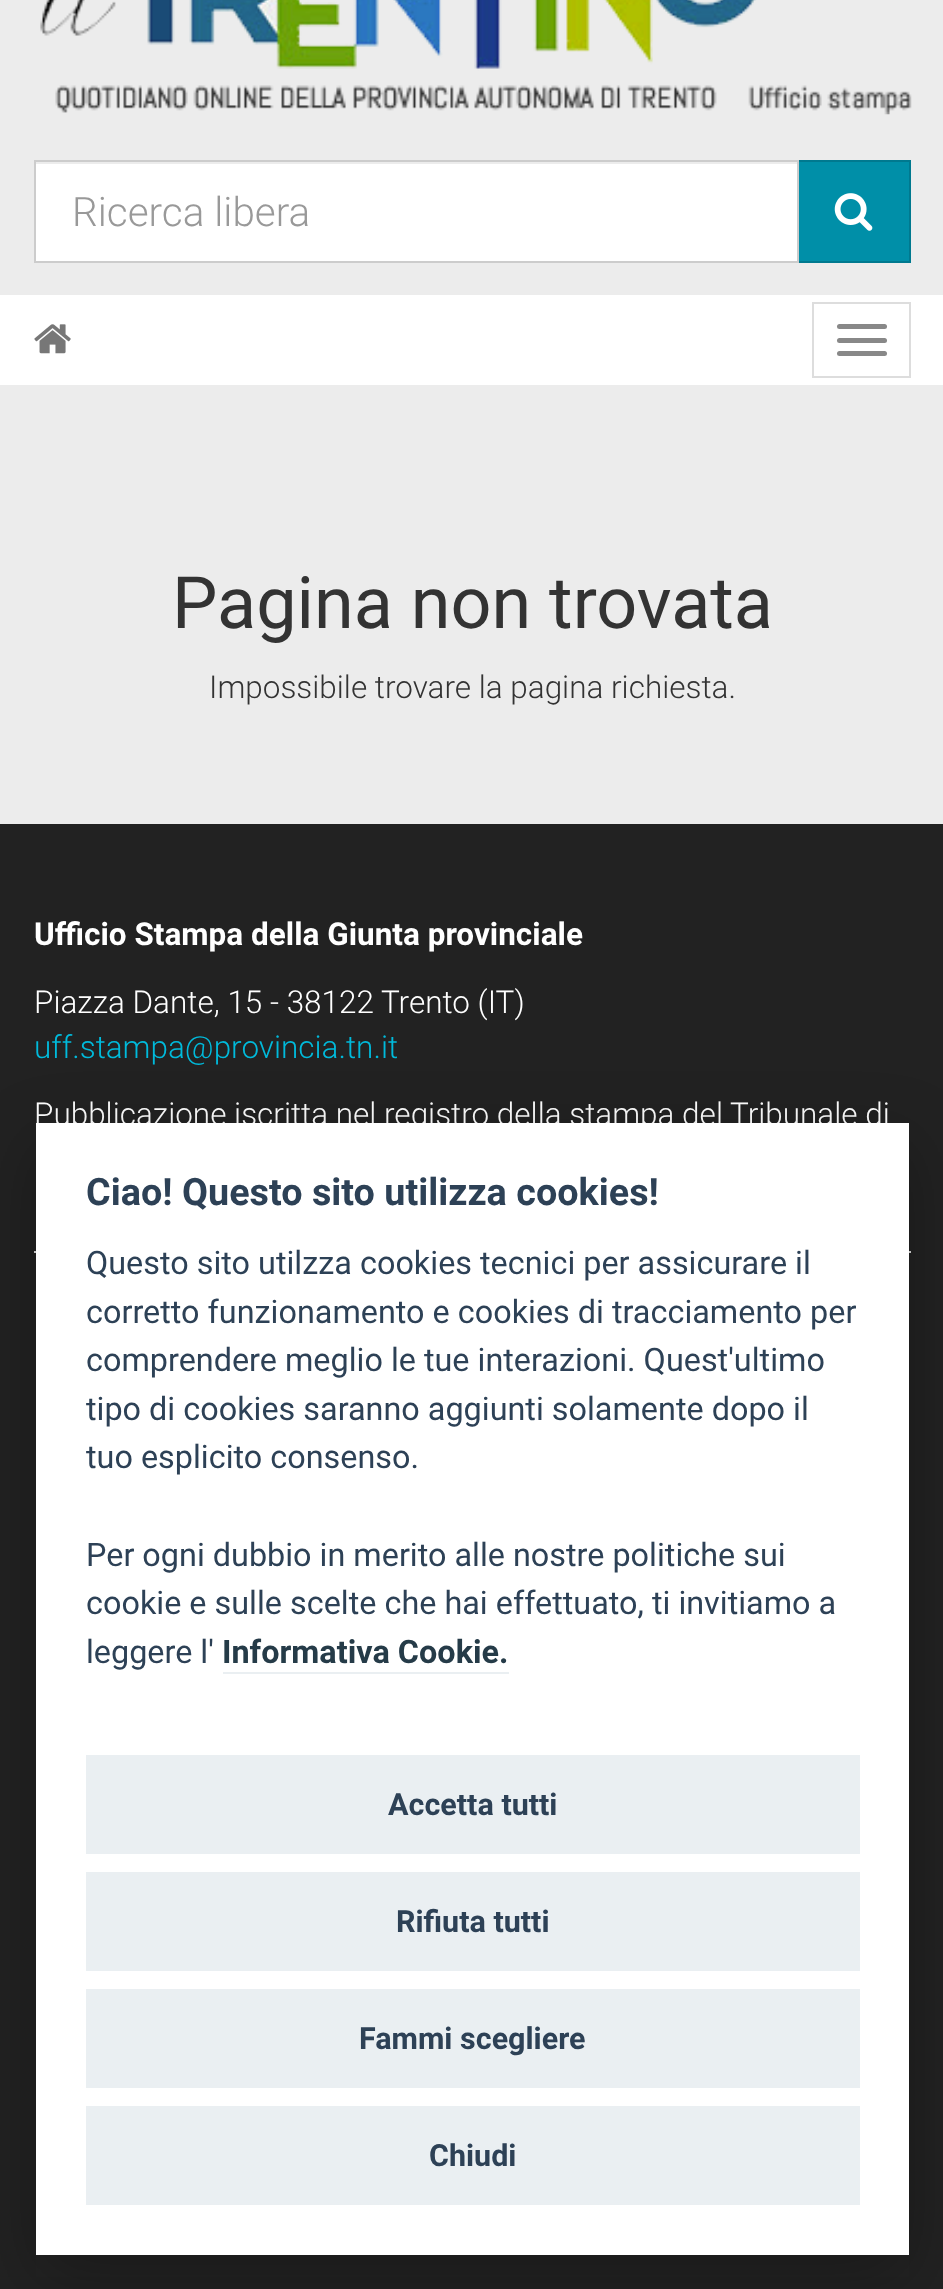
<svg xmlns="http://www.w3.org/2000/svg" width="943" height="2289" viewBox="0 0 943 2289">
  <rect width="100%" height="100%" fill="rgb(236,236,236)"/>
  <image x="40" y="0" width="872" height="115" href="pic1.png"/>
  <rect x="36" y="164" width="761" height="97" fill="rgb(255,255,255)"/>
  <rect x="798" y="161" width="112" height="101" fill="rgb(0,143,168)" stroke="rgb(0,121,143)" stroke-width="2"/>
  <rect x="35" y="161" width="763" height="101" fill="none" stroke="rgb(204,204,204)" stroke-width="2"/>
  <text x="72" y="226" font-family="Roboto" font-size="40.5" font-weight="300" fill="rgb(153,153,153)">Ricerca libera</text>
  <image x="834" y="193" width="39" height="38" href="pic2.png"/>
  <rect x="0" y="295" width="943" height="90" fill="rgb(255,255,255)"/>
  <image x="34" y="324" width="37" height="30" href="pic3.png"/>
  <rect x="813" y="303" width="97" height="74" fill="none" stroke="rgb(221,221,221)" stroke-width="2"/>
  <rect x="837" y="324" width="50" height="5" rx="2.5" fill="rgb(136,136,136)"/>
  <rect x="837" y="338" width="50" height="5" rx="2.5" fill="rgb(136,136,136)"/>
  <rect x="837" y="351" width="50" height="5" rx="2.5" fill="rgb(136,136,136)"/>
  <text x="172" y="628" font-family="Roboto" font-size="72" fill="rgb(51,51,51)">Pagina non trovata</text>
  <text x="209" y="698" font-family="Roboto" font-size="31.5" font-weight="300" fill="rgb(51,51,51)">Impossibile trovare la pagina richiesta.</text>
  <rect x="0" y="824" width="943" height="1465" fill="rgb(34,34,34)"/>
  <text x="34" y="945" font-family="Roboto" font-size="31.5" font-weight="bold" fill="rgb(255,255,255)">Ufficio Stampa della Giunta provinciale</text>
  <text x="34" y="1013" font-family="Roboto" font-size="31.5" font-weight="300" fill="rgb(255,255,255)">Piazza Dante, 15 - 38122 Trento (IT)</text>
  <text x="34" y="1058" font-family="Roboto" font-size="31.5" font-weight="300" fill="rgb(0,186,219)">uff.stampa@provincia.tn.it</text>
  <text x="34" y="1125" font-family="Roboto" font-size="31.5" font-weight="300" fill="rgb(255,255,255)">Pubblicazione iscritta nel registro della stampa del Tribunale di</text>
  <rect x="34" y="1251" width="877" height="2" fill="rgb(222,222,222)"/>
  <rect x="36" y="1145" width="873" height="1132" fill="rgba(2,2,3,0.28)" filter="blur(34px)"/>
  <rect x="36" y="1123" width="873" height="1132" fill="rgb(255,255,255)"/>
  <text x="86" y="1205" font-family="Roboto" font-size="37.75" font-weight="bold" fill="rgb(45,65,86)">Ciao! Questo sito utilizza cookies!</text>
  <g font-family="Roboto" font-size="32.4" fill="rgb(45,65,86)">
    <text>
      <tspan x="86" y="1274">Questo sito utilzza cookies tecnici per assicurare il</tspan>
      <tspan x="86" y="1323">corretto funzionamento e cookies di tracciamento per</tspan>
      <tspan x="86" y="1371">comprendere meglio le tue interazioni. Quest'ultimo</tspan>
      <tspan x="86" y="1420">tipo di cookies saranno aggiunti solamente dopo il</tspan>
      <tspan x="86" y="1468">tuo esplicito consenso.</tspan>
    </text>
    <text>
      <tspan x="86" y="1566">Per ogni dubbio in merito alle nostre politiche sui</tspan>
      <tspan x="86" y="1614">cookie e sulle scelte che hai effettuato, ti invitiamo a</tspan>
      <tspan x="86" y="1663">leggere l'</tspan>
    </text>
  </g>
  <text x="222" y="1663" font-family="Roboto" font-size="32.4" font-weight="bold" fill="rgb(37,59,72)">Informativa Cookie.</text>
  <rect x="223" y="1672" width="286" height="2" fill="rgb(234,239,242)"/>
  <rect x="86" y="1755" width="774" height="99" fill="rgb(234,239,242)"/>
  <text x="388" y="1815" font-family="Roboto" font-size="30.5" font-weight="bold" fill="rgb(45,65,86)">Accetta tutti</text>
  <rect x="86" y="1872" width="774" height="99" fill="rgb(234,239,242)"/>
  <text x="396" y="1932" font-family="Roboto" font-size="30.5" font-weight="bold" fill="rgb(45,65,86)">Rifiuta tutti</text>
  <rect x="86" y="1989" width="774" height="99" fill="rgb(234,239,242)"/>
  <text x="359" y="2049" font-family="Roboto" font-size="30.5" font-weight="bold" fill="rgb(45,65,86)">Fammi scegliere</text>
  <rect x="86" y="2106" width="774" height="99" fill="rgb(234,239,242)"/>
  <text x="429" y="2166" font-family="Roboto" font-size="30.5" font-weight="bold" fill="rgb(45,65,86)">Chiudi</text>
</svg>
